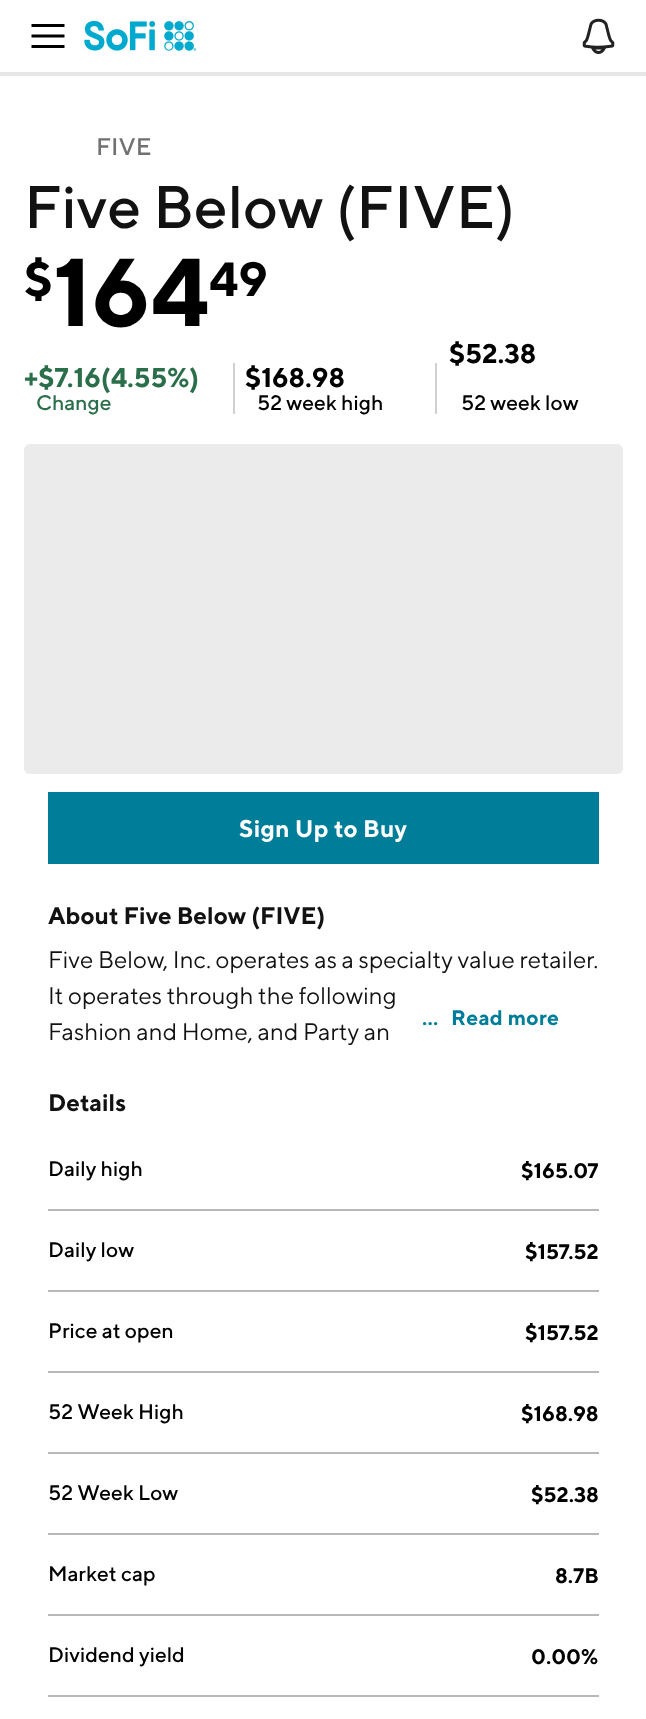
<svg xmlns="http://www.w3.org/2000/svg" width="646" height="1719" viewBox="0 0 646 1719">
  <rect width="100%" height="100%" fill="rgb(255,255,255)"/>
  <rect x="0" y="72" width="646" height="4" fill="rgb(231,231,231)"/>
  <path d="M64.5 45V48H31.5V45ZM64.5 34.5V37.5H31.5V34.5ZM64.5 24V27H31.5V24Z" fill="rgb(0,0,0)"/>
  <image x="84" y="21" width="113" height="30" href="pic1.png"/>
  <image x="582" y="18" width="33" height="36" href="pic2.png"/>
  <text x="96" y="155" font-family="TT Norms" font-size="24" font-weight="500" fill="rgb(113,113,113)">FIVE</text>
  <text x="24" y="228" font-family="TT Norms" font-size="60" font-weight="500" fill="rgb(18,18,18)">Five Below (FIVE)</text>
  <text x="24" y="296" font-family="TT Norms" font-size="48" font-weight="bold" fill="rgb(0,0,0)">$</text>
  <text x="53" y="326" font-family="TT Norms" font-size="96" font-weight="bold" fill="rgb(0,0,0)">164</text>
  <text x="209" y="296" font-family="TT Norms" font-size="48" font-weight="bold" fill="rgb(0,0,0)">49</text>
  <rect x="233" y="363" width="2" height="51" fill="rgb(208,208,208)"/>
  <text x="24" y="387" font-family="TT Norms" font-size="27" font-weight="bold" fill="rgb(42,111,74)">+$7.16(4.55%)</text>
  <text x="36" y="410" font-family="TT Norms" font-size="21" font-weight="500" fill="rgb(42,111,74)">Change</text>
  <rect x="435" y="363" width="2" height="51" fill="rgb(208,208,208)"/>
  <text x="245" y="387" font-family="TT Norms" font-size="27" font-weight="bold" fill="rgb(0,0,0)">$168.98</text>
  <text x="257" y="410" font-family="TT Norms" font-size="21" font-weight="500" fill="rgb(0,0,0)">52 week high</text>
  <text x="449" y="363" font-family="TT Norms" font-size="27" font-weight="bold" fill="rgb(0,0,0)">$52.38</text>
  <text x="461" y="410" font-family="TT Norms" font-size="21" font-weight="500" fill="rgb(0,0,0)">52 week low</text>
  <rect x="24" y="444" width="599" height="330" rx="6" fill="rgb(235,235,235)"/>
  <rect x="49.5" y="793.5" width="548" height="69" fill="rgb(0,125,153)" stroke="rgb(0,125,153)" stroke-width="3"/>
  <text x="239" y="837" font-family="TT Norms" font-size="24" font-weight="bold" letter-spacing="0.25" fill="rgb(255,255,255)">Sign Up to Buy</text>
  <text x="48" y="924" font-family="TT Norms" font-size="24" font-weight="bold" fill="rgb(18,18,18)">About Five Below (FIVE)</text>
  <g font-family="TT Norms" font-size="24" fill="rgb(18,18,18)">
    <text>
      <tspan x="48" y="968">Five Below, Inc. operates as a specialty value retailer.</tspan>
      <tspan x="48" y="1004">It operates through the following</tspan>
    </text>
  </g>
  <g font-family="TT Norms" font-size="21" font-weight="bold" letter-spacing="0.25" fill="rgb(0,125,153)">
    <text x="422" y="1025">...</text>
    <text x="451" y="1025">Read more</text>
  </g>
  <text x="48" y="1040" font-family="TT Norms" font-size="24" fill="rgb(18,18,18)">Fashion and Home, and Party an</text>
  <text x="48" y="1111" font-family="TT Norms" font-size="24" font-weight="bold" fill="rgb(18,18,18)">Details</text>
  <rect x="48" y="1209" width="551" height="2" fill="rgb(184,184,184)"/>
  <text x="48" y="1176" font-family="TT Norms" font-size="21" font-weight="500" fill="rgb(0,0,0)">Daily high</text>
  <text x="521" y="1178" font-family="TT Norms" font-size="21" font-weight="bold" fill="rgb(0,0,0)">$165.07</text>
  <rect x="48" y="1290" width="551" height="2" fill="rgb(184,184,184)"/>
  <text x="48" y="1257" font-family="TT Norms" font-size="21" font-weight="500" fill="rgb(0,0,0)">Daily low</text>
  <text x="525" y="1259" font-family="TT Norms" font-size="21" font-weight="bold" fill="rgb(0,0,0)">$157.52</text>
  <rect x="48" y="1371" width="551" height="2" fill="rgb(184,184,184)"/>
  <text x="48" y="1338" font-family="TT Norms" font-size="21" font-weight="500" fill="rgb(0,0,0)">Price at open</text>
  <text x="525" y="1340" font-family="TT Norms" font-size="21" font-weight="bold" fill="rgb(0,0,0)">$157.52</text>
  <rect x="48" y="1452" width="551" height="2" fill="rgb(184,184,184)"/>
  <text x="48" y="1419" font-family="TT Norms" font-size="21" font-weight="500" fill="rgb(0,0,0)">52 Week High</text>
  <text x="521" y="1421" font-family="TT Norms" font-size="21" font-weight="bold" fill="rgb(0,0,0)">$168.98</text>
  <rect x="48" y="1533" width="551" height="2" fill="rgb(184,184,184)"/>
  <text x="48" y="1500" font-family="TT Norms" font-size="21" font-weight="500" fill="rgb(0,0,0)">52 Week Low</text>
  <text x="531" y="1502" font-family="TT Norms" font-size="21" font-weight="bold" fill="rgb(0,0,0)">$52.38</text>
  <rect x="48" y="1614" width="551" height="2" fill="rgb(184,184,184)"/>
  <text x="48" y="1581" font-family="TT Norms" font-size="21" font-weight="500" fill="rgb(0,0,0)">Market cap</text>
  <text x="555" y="1583" font-family="TT Norms" font-size="21" font-weight="bold" fill="rgb(0,0,0)">8.7B</text>
  <rect x="48" y="1695" width="551" height="2" fill="rgb(184,184,184)"/>
  <text x="48" y="1662" font-family="TT Norms" font-size="21" font-weight="500" fill="rgb(0,0,0)">Dividend yield</text>
  <text x="531" y="1664" font-family="TT Norms" font-size="21" font-weight="bold" fill="rgb(0,0,0)">0.00%</text>
</svg>
